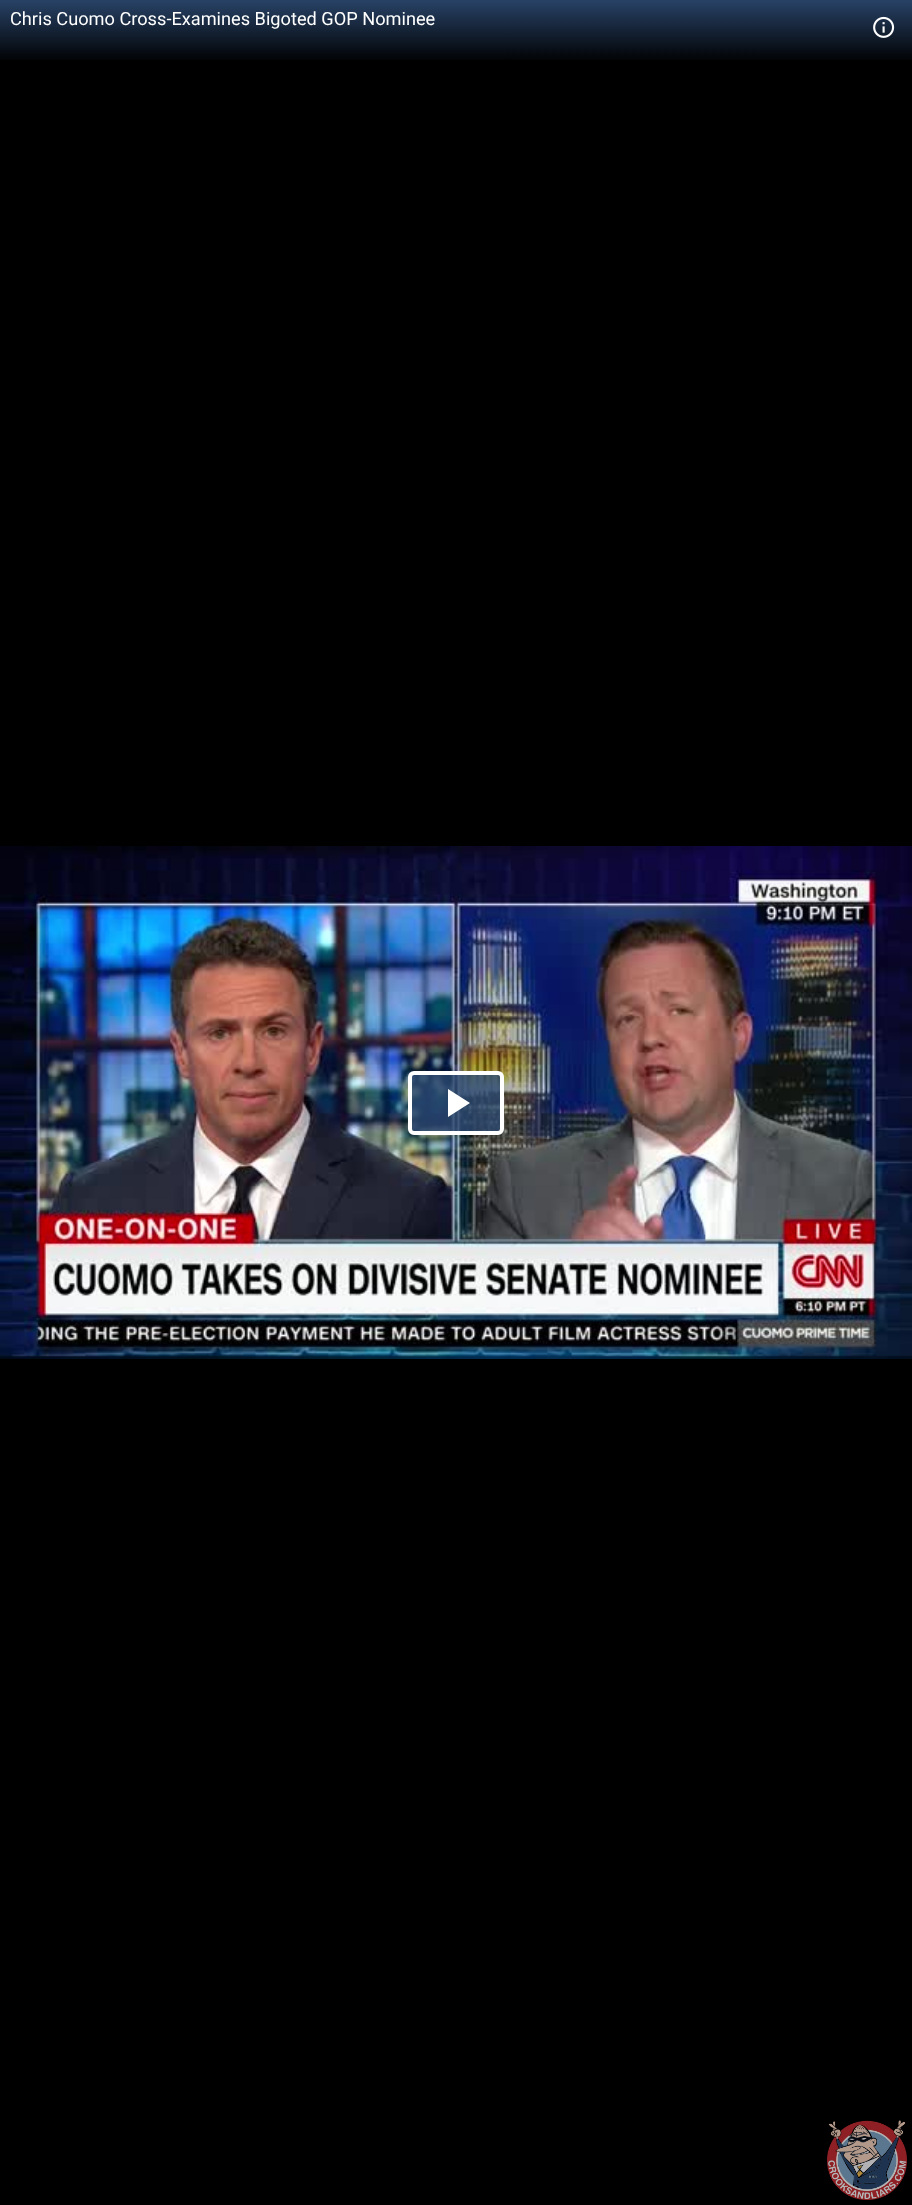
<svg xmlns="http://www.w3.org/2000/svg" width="912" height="2205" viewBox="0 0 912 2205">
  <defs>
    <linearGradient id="g1" gradientUnits="userSpaceOnUse" x1="456" y1="0" x2="456" y2="60"><stop offset="0.01" stop-color="rgb(44,73,113)" stop-opacity="0.9"/><stop offset="1" stop-color="rgb(44,73,113)" stop-opacity="0.05"/></linearGradient>
  </defs>
  <rect width="100%" height="100%" fill="rgb(0,0,0)"/>
  <rect x="0" y="0" width="912" height="60" fill="url(#g1)"/>
  <text x="10" y="25" font-family="Roboto" font-size="18.2" fill="rgb(255,255,255)">Chris Cuomo Cross-Examines Bigoted GOP Nominee</text>
  <image x="873" y="16" width="22" height="22" href="pic1.png"/>
  <image x="0" y="846" width="912" height="513" href="pic2.png"/>
  <rect x="410" y="1073" width="92" height="60" rx="4" fill="rgba(44,73,113,0.8)" stroke="rgb(255,255,255)" stroke-width="4"/>
  <path d="M448 1089V1117L470 1103Z" fill="rgb(255,255,255)"/>
  <image x="827" y="2120" width="80" height="80" href="pic3.png"/>
</svg>
